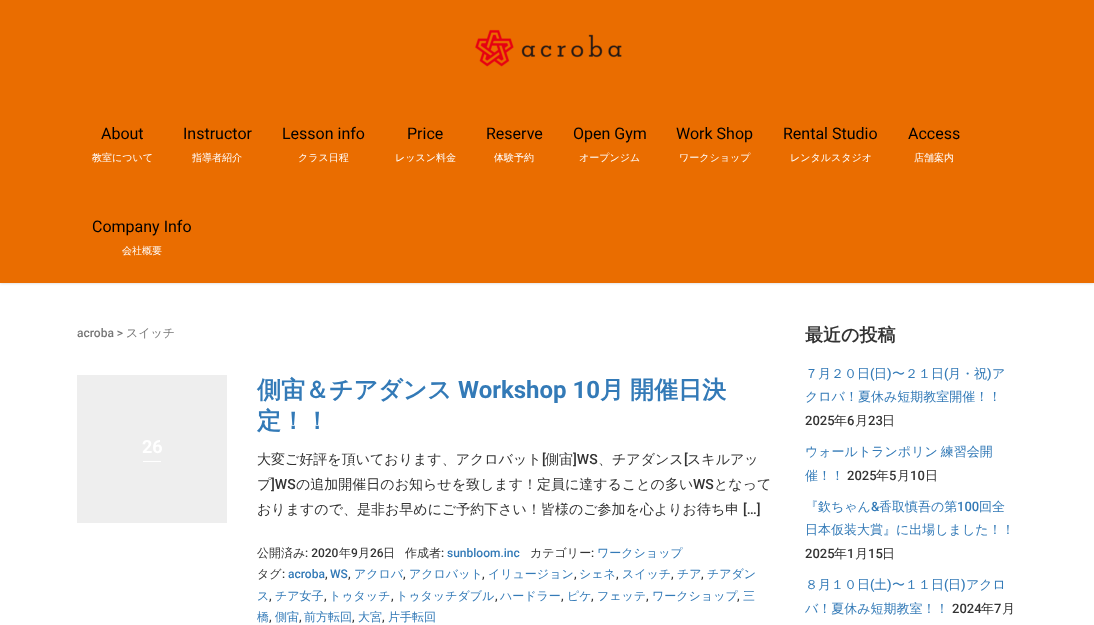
<svg xmlns="http://www.w3.org/2000/svg" width="1094" height="625" viewBox="0 0 1094 625">
  <rect width="100%" height="100%" fill="rgb(255,255,255)"/>
  <rect x="0" y="0" width="1094" height="283" fill="rgba(0,0,0,0.2)" filter="blur(1.5px)"/>
  <rect x="0" y="0" width="1094" height="283" fill="rgb(234,109,0)"/>
  <image x="475" y="29" width="147" height="38" href="pic1.png"/>
  <text x="101" y="139" font-family="Roboto" font-size="16" fill="rgb(0,0,0)">About</text>
  <text x="92" y="161" font-family="WenQuanYi Zen Hei" font-size="10" font-weight="500" fill="rgb(255,255,255)">教室について</text>
  <text x="183" y="139" font-family="Roboto" font-size="16" fill="rgb(0,0,0)">Instructor</text>
  <text x="192" y="161" font-family="WenQuanYi Zen Hei" font-size="10" font-weight="500" fill="rgb(255,255,255)">指導者紹介</text>
  <text x="282" y="139" font-family="Roboto" font-size="16" fill="rgb(0,0,0)">Lesson info</text>
  <text x="298" y="161" font-family="WenQuanYi Zen Hei" font-size="10" font-weight="500" fill="rgb(255,255,255)">クラス日程</text>
  <text x="407" y="139" font-family="Roboto" font-size="16" fill="rgb(0,0,0)">Price</text>
  <text x="395" y="161" font-family="WenQuanYi Zen Hei" font-size="10" font-weight="500" fill="rgb(255,255,255)">レッスン料金</text>
  <text x="486" y="139" font-family="Roboto" font-size="16" fill="rgb(0,0,0)">Reserve</text>
  <text x="494" y="161" font-family="WenQuanYi Zen Hei" font-size="10" font-weight="500" fill="rgb(255,255,255)">体験予約</text>
  <text x="573" y="139" font-family="Roboto" font-size="16" fill="rgb(0,0,0)">Open Gym</text>
  <text x="579" y="161" font-family="WenQuanYi Zen Hei" font-size="10" font-weight="500" fill="rgb(255,255,255)">オープンジム</text>
  <text x="676" y="139" font-family="Roboto" font-size="16" fill="rgb(0,0,0)">Work Shop</text>
  <text x="679" y="161" font-family="WenQuanYi Zen Hei" font-size="10" font-weight="500" fill="rgb(255,255,255)">ワークショップ</text>
  <text x="783" y="139" font-family="Roboto" font-size="16" fill="rgb(0,0,0)">Rental Studio</text>
  <text x="790" y="161" font-family="WenQuanYi Zen Hei" font-size="10" font-weight="500" fill="rgb(255,255,255)">レンタルスタジオ</text>
  <text x="908" y="139" font-family="Roboto" font-size="16" fill="rgb(0,0,0)">Access</text>
  <text x="914" y="161" font-family="WenQuanYi Zen Hei" font-size="10" font-weight="500" fill="rgb(255,255,255)">店舗案内</text>
  <text x="92" y="232" font-family="Roboto" font-size="16" fill="rgb(0,0,0)">Company Info</text>
  <text x="122" y="254" font-family="WenQuanYi Zen Hei" font-size="10" font-weight="500" fill="rgb(255,255,255)">会社概要</text>
  <text x="77" y="337" font-family="Roboto" font-size="12" font-weight="500" fill="rgb(119,119,119)">acroba &gt;</text>
  <text x="126" y="337" font-family="WenQuanYi Zen Hei" font-size="12" font-weight="500" fill="rgb(119,119,119)">スイッチ</text>
  <rect x="77" y="375" width="150" height="148" fill="rgb(238,238,238)"/>
  <text x="142" y="453" font-family="Roboto" font-size="18" font-weight="bold" fill="rgb(255,255,255)">26</text>
  <rect x="143" y="461" width="18" height="1" fill="rgb(255,255,255)"/>
  <text x="257" y="398" font-family="WenQuanYi Zen Hei" font-size="24" font-weight="bold" fill="rgb(51,122,183)">側宙＆チアダンス</text>
  <text x="458" y="398" font-family="Roboto" font-size="24" font-weight="bold" fill="rgb(51,122,183)">Workshop 10</text>
  <g font-family="WenQuanYi Zen Hei" font-size="24" font-weight="bold" fill="rgb(51,122,183)">
    <text x="600" y="398">月</text>
    <text x="630" y="398">開催日決</text>
    <text x="257" y="429">定！！</text>
  </g>
  <text x="257" y="464" font-family="WenQuanYi Zen Hei" font-size="14" font-weight="500" fill="rgb(51,51,51)">大変ご好評を頂いております、アクロバット</text>
  <text x="542" y="464" font-family="Roboto" font-size="14" font-weight="500" fill="rgb(51,51,51)">[</text>
  <text x="545" y="464" font-family="WenQuanYi Zen Hei" font-size="14" font-weight="500" fill="rgb(51,51,51)">側宙</text>
  <text x="573" y="464" font-family="Roboto" font-size="14" font-weight="500" fill="rgb(51,51,51)">]WS</text>
  <text x="598" y="464" font-family="WenQuanYi Zen Hei" font-size="14" font-weight="500" fill="rgb(51,51,51)">、チアダンス</text>
  <text x="684" y="464" font-family="Roboto" font-size="14" font-weight="500" fill="rgb(51,51,51)">[</text>
  <g font-family="WenQuanYi Zen Hei" font-size="14" font-weight="500" fill="rgb(51,51,51)">
    <text x="687" y="464">スキルアッ</text>
    <text x="257" y="489">プ</text>
  </g>
  <text x="271" y="489" font-family="Roboto" font-size="14" font-weight="500" fill="rgb(51,51,51)">]WS</text>
  <text x="296" y="489" font-family="WenQuanYi Zen Hei" font-size="14" font-weight="500" fill="rgb(51,51,51)">の追加開催日のお知らせを致します！定員に達することの多い</text>
  <text x="693" y="489" font-family="Roboto" font-size="14" font-weight="500" fill="rgb(51,51,51)">WS</text>
  <g font-family="WenQuanYi Zen Hei" font-size="14" font-weight="500" fill="rgb(51,51,51)">
    <text x="714" y="489">となって</text>
    <text x="257" y="514">おりますので、是非お早めにご予約下さい！皆様のご参加を心よりお待ち申</text>
  </g>
  <text x="743" y="514" font-family="Roboto" font-size="14" font-weight="500" fill="rgb(51,51,51)">[…]</text>
  <text x="257" y="557" font-family="WenQuanYi Zen Hei" font-size="12" font-weight="500" fill="rgb(51,51,51)">公開済み</text>
  <text x="305" y="557" font-family="Roboto" font-size="12" font-weight="500" fill="rgb(51,51,51)">: 2020</text>
  <text x="339" y="557" font-family="WenQuanYi Zen Hei" font-size="12" font-weight="500" fill="rgb(51,51,51)">年</text>
  <text x="351" y="557" font-family="Roboto" font-size="12" font-weight="500" fill="rgb(51,51,51)">9</text>
  <text x="358" y="557" font-family="WenQuanYi Zen Hei" font-size="12" font-weight="500" fill="rgb(51,51,51)">月</text>
  <text x="370" y="557" font-family="Roboto" font-size="12" font-weight="500" fill="rgb(51,51,51)">26</text>
  <g font-family="WenQuanYi Zen Hei" font-size="12" font-weight="500" fill="rgb(51,51,51)">
    <text x="383" y="557">日</text>
    <text x="405" y="557">作成者</text>
  </g>
  <text x="441" y="557" font-family="Roboto" font-size="12" font-weight="500" fill="rgb(51,51,51)">:</text>
  <text x="447" y="557" font-family="Roboto" font-size="12" font-weight="500" fill="rgb(51,122,183)">sunbloom.inc</text>
  <text x="530" y="557" font-family="WenQuanYi Zen Hei" font-size="12" font-weight="500" fill="rgb(51,51,51)">カテゴリー</text>
  <text x="591" y="557" font-family="Roboto" font-size="12" font-weight="500" fill="rgb(51,51,51)">:</text>
  <text x="597" y="557" font-family="WenQuanYi Zen Hei" font-size="12" font-weight="500" fill="rgb(51,122,183)">ワークショップ</text>
  <text x="257" y="578" font-family="WenQuanYi Zen Hei" font-size="12" font-weight="500" fill="rgb(51,51,51)">タグ</text>
  <text x="282" y="578" font-family="Roboto" font-size="12" font-weight="500" fill="rgb(51,51,51)">:</text>
  <text x="288" y="578" font-family="Roboto" font-size="12" font-weight="500" fill="rgb(51,122,183)">acroba</text>
  <text x="325" y="578" font-family="Roboto" font-size="12" font-weight="500" fill="rgb(51,51,51)">,</text>
  <text x="330" y="578" font-family="Roboto" font-size="12" font-weight="500" fill="rgb(51,122,183)">WS</text>
  <text x="348" y="578" font-family="Roboto" font-size="12" font-weight="500" fill="rgb(51,51,51)">,</text>
  <text x="354" y="578" font-family="WenQuanYi Zen Hei" font-size="12" font-weight="500" fill="rgb(51,122,183)">アクロバ</text>
  <text x="403" y="578" font-family="Roboto" font-size="12" font-weight="500" fill="rgb(51,51,51)">,</text>
  <text x="409" y="578" font-family="WenQuanYi Zen Hei" font-size="12" font-weight="500" fill="rgb(51,122,183)">アクロバット</text>
  <text x="482" y="578" font-family="Roboto" font-size="12" font-weight="500" fill="rgb(51,51,51)">,</text>
  <text x="488" y="578" font-family="WenQuanYi Zen Hei" font-size="12" font-weight="500" fill="rgb(51,122,183)">イリュージョン</text>
  <text x="574" y="578" font-family="Roboto" font-size="12" font-weight="500" fill="rgb(51,51,51)">,</text>
  <text x="579" y="578" font-family="WenQuanYi Zen Hei" font-size="12" font-weight="500" fill="rgb(51,122,183)">シェネ</text>
  <text x="616" y="578" font-family="Roboto" font-size="12" font-weight="500" fill="rgb(51,51,51)">,</text>
  <text x="622" y="578" font-family="WenQuanYi Zen Hei" font-size="12" font-weight="500" fill="rgb(51,122,183)">スイッチ</text>
  <text x="671" y="578" font-family="Roboto" font-size="12" font-weight="500" fill="rgb(51,51,51)">,</text>
  <text x="677" y="578" font-family="WenQuanYi Zen Hei" font-size="12" font-weight="500" fill="rgb(51,122,183)">チア</text>
  <text x="701" y="578" font-family="Roboto" font-size="12" font-weight="500" fill="rgb(51,51,51)">,</text>
  <g font-family="WenQuanYi Zen Hei" font-size="12" font-weight="500" fill="rgb(51,122,183)">
    <text x="707" y="578">チアダン</text>
    <text x="257" y="600">ス</text>
  </g>
  <text x="269" y="600" font-family="Roboto" font-size="12" font-weight="500" fill="rgb(51,51,51)">,</text>
  <text x="275" y="600" font-family="WenQuanYi Zen Hei" font-size="12" font-weight="500" fill="rgb(51,122,183)">チア女子</text>
  <text x="324" y="600" font-family="Roboto" font-size="12" font-weight="500" fill="rgb(51,51,51)">,</text>
  <text x="329" y="600" font-family="WenQuanYi Zen Hei" font-size="12" font-weight="500" fill="rgb(51,122,183)">トゥタッチ</text>
  <text x="391" y="600" font-family="Roboto" font-size="12" font-weight="500" fill="rgb(51,51,51)">,</text>
  <text x="396" y="600" font-family="WenQuanYi Zen Hei" font-size="12" font-weight="500" fill="rgb(51,122,183)">トゥタッチダブル</text>
  <text x="495" y="600" font-family="Roboto" font-size="12" font-weight="500" fill="rgb(51,51,51)">,</text>
  <text x="500" y="600" font-family="WenQuanYi Zen Hei" font-size="12" font-weight="500" fill="rgb(51,122,183)">ハードラー</text>
  <text x="561" y="600" font-family="Roboto" font-size="12" font-weight="500" fill="rgb(51,51,51)">,</text>
  <text x="567" y="600" font-family="WenQuanYi Zen Hei" font-size="12" font-weight="500" fill="rgb(51,122,183)">ピケ</text>
  <text x="591" y="600" font-family="Roboto" font-size="12" font-weight="500" fill="rgb(51,51,51)">,</text>
  <text x="597" y="600" font-family="WenQuanYi Zen Hei" font-size="12" font-weight="500" fill="rgb(51,122,183)">フェッテ</text>
  <text x="646" y="600" font-family="Roboto" font-size="12" font-weight="500" fill="rgb(51,51,51)">,</text>
  <text x="652" y="600" font-family="WenQuanYi Zen Hei" font-size="12" font-weight="500" fill="rgb(51,122,183)">ワークショップ</text>
  <text x="737" y="600" font-family="Roboto" font-size="12" font-weight="500" fill="rgb(51,51,51)">,</text>
  <g font-family="WenQuanYi Zen Hei" font-size="12" font-weight="500" fill="rgb(51,122,183)">
    <text x="743" y="600">三</text>
    <text x="257" y="621">橋</text>
  </g>
  <text x="269" y="621" font-family="Roboto" font-size="12" font-weight="500" fill="rgb(51,51,51)">,</text>
  <text x="275" y="621" font-family="WenQuanYi Zen Hei" font-size="12" font-weight="500" fill="rgb(51,122,183)">側宙</text>
  <text x="299" y="621" font-family="Roboto" font-size="12" font-weight="500" fill="rgb(51,51,51)">,</text>
  <text x="304" y="621" font-family="WenQuanYi Zen Hei" font-size="12" font-weight="500" fill="rgb(51,122,183)">前方転回</text>
  <text x="352" y="621" font-family="Roboto" font-size="12" font-weight="500" fill="rgb(51,51,51)">,</text>
  <text x="358" y="621" font-family="WenQuanYi Zen Hei" font-size="12" font-weight="500" fill="rgb(51,122,183)">大宮</text>
  <text x="382" y="621" font-family="Roboto" font-size="12" font-weight="500" fill="rgb(51,51,51)">,</text>
  <text x="388" y="621" font-family="WenQuanYi Zen Hei" font-size="12" font-weight="500" fill="rgb(51,122,183)">片手転回</text>
  <text x="805" y="341" font-family="WenQuanYi Zen Hei" font-size="18" font-weight="bold" fill="rgb(51,51,51)">最近の投稿</text>
  <text x="805" y="378" font-family="WenQuanYi Zen Hei" font-size="13" font-weight="500" fill="rgb(51,122,183)">７月２０日</text>
  <text x="870" y="378" font-family="Roboto" font-size="13" font-weight="500" fill="rgb(51,122,183)">(</text>
  <text x="874" y="378" font-family="WenQuanYi Zen Hei" font-size="13" font-weight="500" fill="rgb(51,122,183)">日</text>
  <text x="887" y="378" font-family="Roboto" font-size="13" font-weight="500" fill="rgb(51,122,183)">)</text>
  <text x="892" y="378" font-family="WenQuanYi Zen Hei" font-size="13" font-weight="500" fill="rgb(51,122,183)">〜２１日</text>
  <text x="944" y="378" font-family="Roboto" font-size="13" font-weight="500" fill="rgb(51,122,183)">(</text>
  <text x="948" y="378" font-family="WenQuanYi Zen Hei" font-size="13" font-weight="500" fill="rgb(51,122,183)">月・祝</text>
  <text x="987" y="378" font-family="Roboto" font-size="13" font-weight="500" fill="rgb(51,122,183)">)</text>
  <g font-family="WenQuanYi Zen Hei" font-size="13" font-weight="500" fill="rgb(51,122,183)">
    <text x="992" y="378">ア</text>
    <text x="805" y="401">クロバ！夏休み短期教室開催！！</text>
  </g>
  <text x="805" y="425" font-family="Roboto" font-size="13" font-weight="500" fill="rgb(51,51,51)">2025</text>
  <text x="834" y="425" font-family="WenQuanYi Zen Hei" font-size="13" font-weight="500" fill="rgb(51,51,51)">年</text>
  <text x="847" y="425" font-family="Roboto" font-size="13" font-weight="500" fill="rgb(51,51,51)">6</text>
  <text x="855" y="425" font-family="WenQuanYi Zen Hei" font-size="13" font-weight="500" fill="rgb(51,51,51)">月</text>
  <text x="868" y="425" font-family="Roboto" font-size="13" font-weight="500" fill="rgb(51,51,51)">23</text>
  <text x="882" y="425" font-family="WenQuanYi Zen Hei" font-size="13" font-weight="500" fill="rgb(51,51,51)">日</text>
  <g font-family="WenQuanYi Zen Hei" font-size="13" font-weight="500" fill="rgb(51,122,183)">
    <text>
      <tspan x="805" y="456" word-spacing="-1">ウォールトランポリン 練習会開</tspan>
      <tspan x="805" y="480">催！！</tspan>
    </text>
  </g>
  <text x="847" y="480" font-family="Roboto" font-size="13" font-weight="500" fill="rgb(51,51,51)">2025</text>
  <text x="876" y="480" font-family="WenQuanYi Zen Hei" font-size="13" font-weight="500" fill="rgb(51,51,51)">年</text>
  <text x="889" y="480" font-family="Roboto" font-size="13" font-weight="500" fill="rgb(51,51,51)">5</text>
  <text x="897" y="480" font-family="WenQuanYi Zen Hei" font-size="13" font-weight="500" fill="rgb(51,51,51)">月</text>
  <text x="910" y="480" font-family="Roboto" font-size="13" font-weight="500" fill="rgb(51,51,51)">10</text>
  <text x="925" y="480" font-family="WenQuanYi Zen Hei" font-size="13" font-weight="500" fill="rgb(51,51,51)">日</text>
  <text x="805" y="511" font-family="WenQuanYi Zen Hei" font-size="13" font-weight="500" fill="rgb(51,122,183)">『欽ちゃん</text>
  <text x="871" y="511" font-family="Roboto" font-size="13" font-weight="500" fill="rgb(51,122,183)">&amp;</text>
  <text x="879" y="511" font-family="WenQuanYi Zen Hei" font-size="13" font-weight="500" fill="rgb(51,122,183)">香取慎吾の第</text>
  <text x="957" y="511" font-family="Roboto" font-size="13" font-weight="500" fill="rgb(51,122,183)">100</text>
  <g font-family="WenQuanYi Zen Hei" font-size="13" font-weight="500" fill="rgb(51,122,183)">
    <text x="979" y="511">回全</text>
    <text x="805" y="534">日本仮装大賞』に出場しました！！</text>
  </g>
  <text x="805" y="558" font-family="Roboto" font-size="13" font-weight="500" fill="rgb(51,51,51)">2025</text>
  <text x="834" y="558" font-family="WenQuanYi Zen Hei" font-size="13" font-weight="500" fill="rgb(51,51,51)">年</text>
  <text x="847" y="558" font-family="Roboto" font-size="13" font-weight="500" fill="rgb(51,51,51)">1</text>
  <text x="855" y="558" font-family="WenQuanYi Zen Hei" font-size="13" font-weight="500" fill="rgb(51,51,51)">月</text>
  <text x="868" y="558" font-family="Roboto" font-size="13" font-weight="500" fill="rgb(51,51,51)">15</text>
  <text x="882" y="558" font-family="WenQuanYi Zen Hei" font-size="13" font-weight="500" fill="rgb(51,51,51)">日</text>
  <text x="805" y="589" font-family="WenQuanYi Zen Hei" font-size="13" font-weight="500" fill="rgb(51,122,183)">８月１０日</text>
  <text x="870" y="589" font-family="Roboto" font-size="13" font-weight="500" fill="rgb(51,122,183)">(</text>
  <text x="874" y="589" font-family="WenQuanYi Zen Hei" font-size="13" font-weight="500" fill="rgb(51,122,183)">土</text>
  <text x="887" y="589" font-family="Roboto" font-size="13" font-weight="500" fill="rgb(51,122,183)">)</text>
  <text x="892" y="589" font-family="WenQuanYi Zen Hei" font-size="13" font-weight="500" fill="rgb(51,122,183)">〜１１日</text>
  <text x="944" y="589" font-family="Roboto" font-size="13" font-weight="500" fill="rgb(51,122,183)">(</text>
  <text x="948" y="589" font-family="WenQuanYi Zen Hei" font-size="13" font-weight="500" fill="rgb(51,122,183)">日</text>
  <text x="961" y="589" font-family="Roboto" font-size="13" font-weight="500" fill="rgb(51,122,183)">)</text>
  <g font-family="WenQuanYi Zen Hei" font-size="13" font-weight="500" fill="rgb(51,122,183)">
    <text x="966" y="589">アクロ</text>
    <text x="805" y="613">バ！夏休み短期教室！！</text>
  </g>
  <text x="952" y="613" font-family="Roboto" font-size="13" font-weight="500" fill="rgb(51,51,51)">2024</text>
  <text x="981" y="613" font-family="WenQuanYi Zen Hei" font-size="13" font-weight="500" fill="rgb(51,51,51)">年</text>
  <text x="994" y="613" font-family="Roboto" font-size="13" font-weight="500" fill="rgb(51,51,51)">7</text>
  <text x="1002" y="613" font-family="WenQuanYi Zen Hei" font-size="13" font-weight="500" fill="rgb(51,51,51)">月</text>
</svg>
